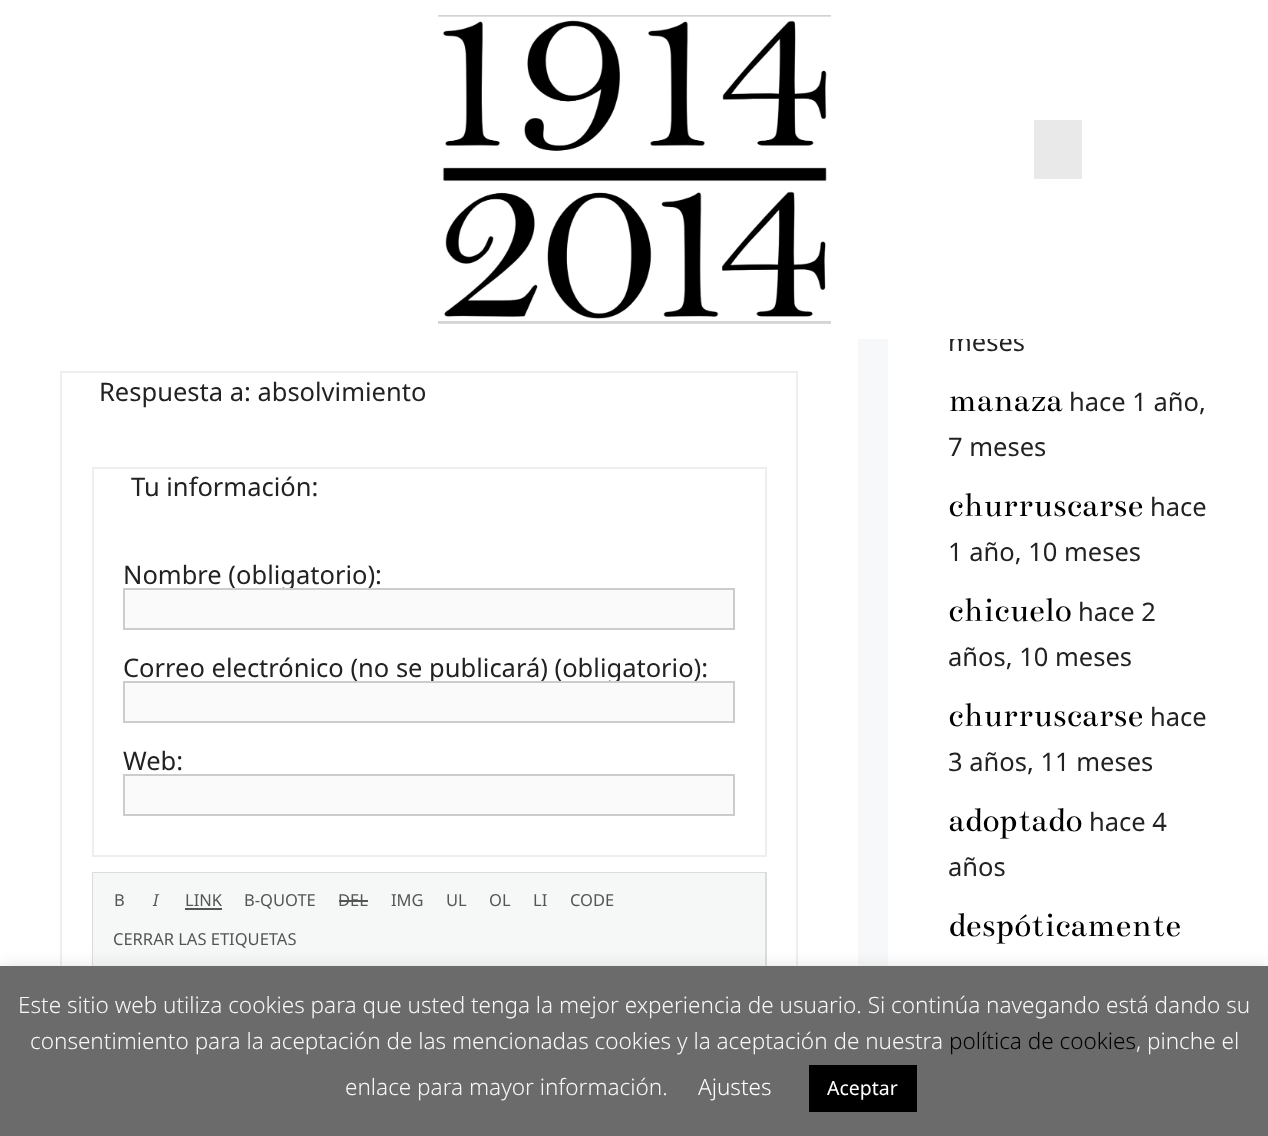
<svg xmlns="http://www.w3.org/2000/svg" width="1268" height="1136" viewBox="0 0 1268 1136">
  <rect width="100%" height="100%" fill="rgb(247,248,249)"/>
  <rect x="888" y="339" width="380" height="627" fill="rgb(255,255,255)"/>
  <text x="948" y="351" font-family="Noto Sans" font-size="25.5" fill="rgb(34,34,34)">meses</text>
  <rect x="0" y="0" width="1268" height="339" fill="rgb(255,255,255)"/>
  <image x="438" y="15" width="393" height="309" href="pic1.png"/>
  <rect x="1034" y="120" width="48" height="59" fill="rgb(233,233,233)"/>
  <rect x="0" y="339" width="858" height="627" fill="rgb(255,255,255)"/>
  <rect x="61" y="372" width="736" height="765" fill="none" stroke="rgb(238,238,238)" stroke-width="2"/>
  <text x="99" y="401" font-family="Noto Sans" font-size="25.5" fill="rgb(34,34,34)">Respuesta a: absolvimiento</text>
  <rect x="93" y="468" width="673" height="388" fill="none" stroke="rgb(238,238,238)" stroke-width="2"/>
  <g font-family="Noto Sans" font-size="25.5" fill="rgb(34,34,34)">
    <text x="131" y="496">Tu información:</text>
    <text x="123" y="584">Nombre (obligatorio):</text>
  </g>
  <rect x="124" y="589" width="610" height="40" fill="rgb(250,250,250)" stroke="rgb(204,204,204)" stroke-width="2"/>
  <text x="123" y="677" font-family="Noto Sans" font-size="25.5" fill="rgb(34,34,34)">Correo electrónico (no se publicará) (obligatorio):</text>
  <rect x="124" y="682" width="610" height="40" fill="rgb(250,250,250)" stroke="rgb(204,204,204)" stroke-width="2"/>
  <text x="123" y="770" font-family="Noto Sans" font-size="25.5" fill="rgb(34,34,34)">Web:</text>
  <rect x="124" y="775" width="610" height="40" fill="rgb(250,250,250)" stroke="rgb(204,204,204)" stroke-width="2"/>
  <rect x="93" y="873" width="673" height="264" fill="none" stroke="rgb(220,220,222)" stroke-width="2"/>
  <rect x="93" y="873" width="672" height="93" fill="rgb(246,247,247)"/>
  <text x="114" y="906" font-family="Noto Sans" font-size="16.5" fill="rgb(85,85,85)">B</text>
  <text x="153" y="906" font-family="Noto Sans" font-size="16.5" font-style="italic" fill="rgb(85,85,85)">I</text>
  <text x="185" y="906" font-family="Noto Sans" font-size="16.5" fill="rgb(85,85,85)">LINK</text>
  <rect x="185" y="908" width="37" height="2" fill="rgb(85,85,85)"/>
  <g font-family="Noto Sans" font-size="16.5" fill="rgb(85,85,85)">
    <text x="244" y="906">B-QUOTE</text>
    <text x="338" y="906">DEL</text>
  </g>
  <rect x="339" y="900" width="29" height="2" fill="rgb(85,85,85)"/>
  <g font-family="Noto Sans" font-size="16.5" fill="rgb(85,85,85)">
    <text x="391" y="906">IMG</text>
    <text x="446" y="906">UL</text>
    <text x="489" y="906">OL</text>
    <text x="533" y="906">LI</text>
    <text x="570" y="906">CODE</text>
    <text x="113" y="945">CERRAR LAS ETIQUETAS</text>
  </g>
  <text x="948" y="411" font-family="Bentham" font-size="36" fill="rgb(0,0,0)">manaza</text>
  <g font-family="Noto Sans" font-size="25.5" fill="rgb(34,34,34)">
    <text x="1069" y="411">hace 1 año,</text>
    <text x="948" y="456">7 meses</text>
  </g>
  <text x="948" y="516" font-family="Bentham" font-size="36" fill="rgb(0,0,0)">churruscarse</text>
  <g font-family="Noto Sans" font-size="25.5" fill="rgb(34,34,34)">
    <text x="1150" y="516">hace</text>
    <text x="948" y="561">1 año, 10 meses</text>
  </g>
  <text x="948" y="621" font-family="Bentham" font-size="36" fill="rgb(0,0,0)">chicuelo</text>
  <g font-family="Noto Sans" font-size="25.5" fill="rgb(34,34,34)">
    <text x="1078" y="621">hace 2</text>
    <text x="948" y="666">años, 10 meses</text>
  </g>
  <text x="948" y="726" font-family="Bentham" font-size="36" fill="rgb(0,0,0)">churruscarse</text>
  <g font-family="Noto Sans" font-size="25.5" fill="rgb(34,34,34)">
    <text x="1150" y="726">hace</text>
    <text x="948" y="771">3 años, 11 meses</text>
  </g>
  <text x="948" y="831" font-family="Bentham" font-size="36" fill="rgb(0,0,0)">adoptado</text>
  <g font-family="Noto Sans" font-size="25.5" fill="rgb(34,34,34)">
    <text x="1089" y="831">hace 4</text>
    <text x="948" y="876">años</text>
  </g>
  <text x="948" y="936" font-family="Bentham" font-size="36" fill="rgb(0,0,0)">despóticamente</text>
  <rect x="0" y="965" width="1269" height="171" fill="rgba(172,171,171,0.3)" filter="blur(7.5px)"/>
  <rect x="0" y="966" width="1268" height="170" fill="rgb(107,107,107)"/>
  <g font-family="Noto Sans" font-size="22.5" font-weight="300" fill="rgb(247,247,247)">
    <text x="18" y="1013">Este sitio web utiliza cookies para que usted tenga la mejor experiencia de usuario. Si continúa navegando está dando su</text>
    <text x="30" y="1049">consentimiento para la aceptación de las mencionadas cookies y la aceptación de nuestra</text>
  </g>
  <text x="949" y="1049" font-family="Noto Sans" font-size="22.5" font-weight="300" fill="rgb(0,0,0)">política de cookies</text>
  <g font-family="Noto Sans" font-size="22.5" font-weight="300" fill="rgb(247,247,247)">
    <text x="1136" y="1049">, pinche el</text>
    <text x="345" y="1095">enlace para mayor información.</text>
  </g>
  <text x="698" y="1095" font-family="Noto Sans" font-size="22.5" font-weight="300" fill="rgb(255,255,255)">Ajustes</text>
  <rect x="809" y="1065" width="108" height="47" fill="rgb(0,0,0)"/>
  <text x="827" y="1095" font-family="Noto Sans" font-size="19.5" fill="rgb(255,255,255)">Aceptar</text>
</svg>
